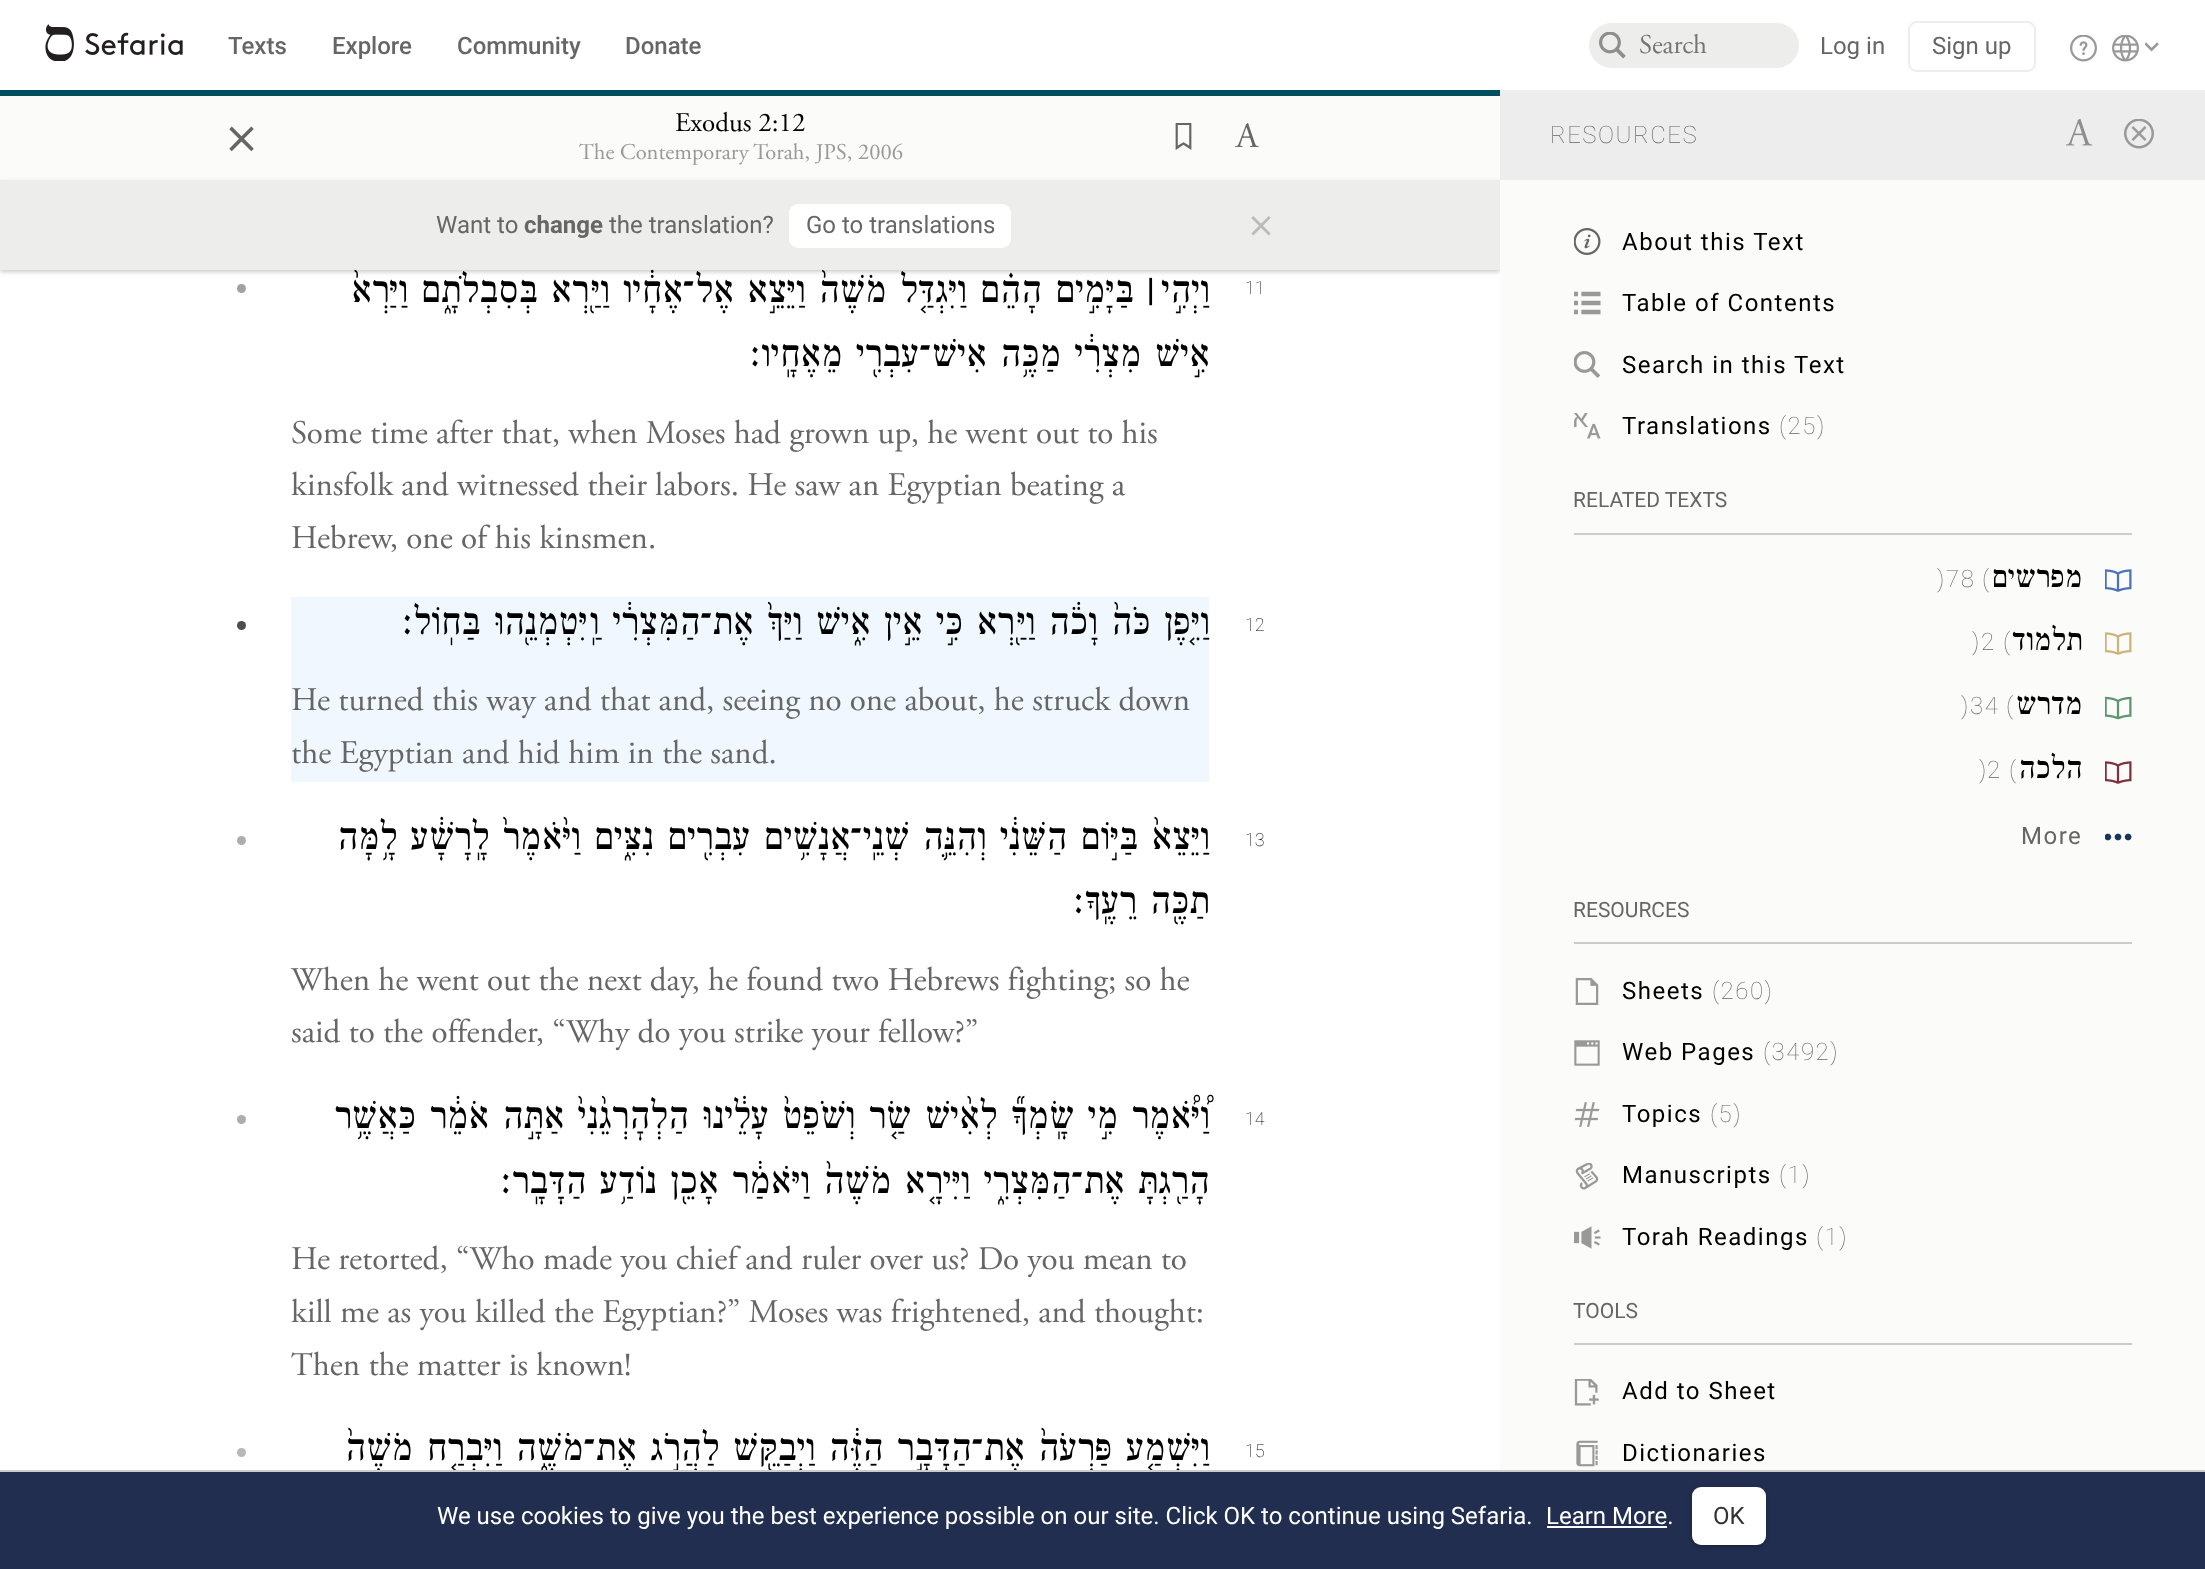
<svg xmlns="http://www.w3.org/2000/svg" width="2205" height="1569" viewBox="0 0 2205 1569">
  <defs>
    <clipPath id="clip1"><rect x="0" y="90" width="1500" height="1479"/></clipPath>
  </defs>
  <rect width="100%" height="100%" fill="rgb(255,255,255)"/>
  <image x="45" y="24" width="138" height="37" href="pic1.png"/>
  <g font-family="Roboto" font-size="24" font-weight="500" fill="rgb(102,102,102)">
    <text x="228" y="54">Texts</text>
    <text x="332" y="54">Explore</text>
    <text x="457" y="54">Community</text>
    <text x="625" y="54">Donate</text>
  </g>
  <rect x="1589" y="23" width="210" height="45" rx="22.5" fill="rgb(237,237,236)"/>
  <image x="1599" y="32" width="27" height="27" href="pic2.png"/>
  <text x="1639" y="53" font-family="Adobe Garamond" font-size="27" fill="rgb(117,117,117)">Search</text>
  <text x="1820" y="54" font-family="Roboto" font-size="24" fill="rgb(102,102,102)">Log in</text>
  <rect x="1909" y="22" width="126" height="49" rx="8" fill="none" stroke="rgb(237,237,236)" stroke-width="2"/>
  <text x="1932" y="54" font-family="Roboto" font-size="24" fill="rgb(102,102,102)">Sign up</text>
  <image x="2070" y="35" width="27" height="27" href="pic3.png"/>
  <image x="2112" y="35" width="27" height="27" href="pic4.png"/>
  <image x="2145" y="42" width="14" height="10" href="pic5.png"/>
  <rect x="0" y="90" width="1500" height="6" fill="rgb(0,78,95)"/>
  <rect x="0" y="96" width="1500" height="84" fill="rgb(251,251,250)"/>
  <text x="225" y="152" font-family="Adobe Garamond" font-size="66" fill="rgb(102,102,102)">×</text>
  <text x="675" y="131" font-family="Adobe Garamond" font-size="27" fill="rgb(0,0,0)">Exodus 2:12</text>
  <text x="579" y="159" font-family="Adobe Garamond" font-size="22.5" fill="rgb(153,153,153)">The Contemporary Torah, JPS, 2006</text>
  <image x="1175" y="123" width="17" height="27" href="pic6.png"/>
  <image x="1235" y="123" width="24" height="24" href="pic7.png"/>
  <rect x="1500" y="180" width="705" height="1290" fill="rgb(251,251,250)"/>
  <g clip-path="url(#clip1)">
    <rect x="0" y="182" width="1500" height="90" fill="rgba(0,0,0,0.2)" filter="blur(2px)"/>
  </g>
  <rect x="0" y="180" width="1500" height="90" fill="rgb(237,237,236)"/>
  <text x="436" y="233" font-family="Roboto" font-size="24" fill="rgb(102,102,102)">Want to</text>
  <text x="524" y="233" font-family="Roboto" font-size="24" font-weight="bold" fill="rgb(102,102,102)">change</text>
  <text x="609" y="233" font-family="Roboto" font-size="24" fill="rgb(102,102,102)">the translation?</text>
  <rect x="789" y="204" width="222" height="44" rx="9" fill="rgb(255,255,255)"/>
  <text x="806" y="233" font-family="Roboto" font-size="24" fill="rgb(102,102,102)">Go to translations</text>
  <text x="1248" y="236" font-family="Adobe Garamond" font-size="52" fill="rgb(187,187,187)">×</text>
  <circle cx="241.5" cy="288.5" r="4.5" fill="rgb(161,161,161)"/>
  <text x="1133" y="302" font-family="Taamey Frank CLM" font-size="40.25" font-weight="500" direction="rtl" fill="rgb(0,0,0)">בַּיָּמִ֣ים הָהֵ֗ם וַיִּגְדַּ֤ל מֹשֶׁה֙ וַיֵּצֵ֣א אֶל־אֶחָ֔יו וַיַּ֖רְא בְּסִבְלֹתָ֑ם וַיַּרְא֙</text>
  <text x="1158" y="302" font-family="Taamey Frank CLM" font-size="40.25" font-weight="bold" direction="rtl" fill="rgb(0,0,0)">׀</text>
  <g font-family="Taamey Frank CLM" font-size="40.25" font-weight="500" direction="rtl" fill="rgb(0,0,0)">
    <text>
      <tspan x="1209" y="302">וַיְהִ֣י</tspan>
      <tspan x="1209" y="366">אִ֣ישׁ מִצְרִ֔י מַכֶּ֥ה אִישׁ־עִבְרִ֖י מֵאֶחָֽיו׃</tspan>
    </text>
  </g>
  <g font-family="Adobe Garamond" font-size="33" fill="rgb(102,102,102)">
    <text>
      <tspan x="291" y="443">Some time after that, when Moses had grown up, he went out to his</tspan>
      <tspan x="291" y="495">kinsfolk and witnessed their labors. He saw an Egyptian beating a</tspan>
      <tspan x="291" y="548">Hebrew, one of his kinsmen.</tspan>
    </text>
  </g>
  <text x="1245" y="294" font-family="Roboto" font-size="18" font-weight="100" fill="rgb(0,0,0)">11</text>
  <rect x="291" y="597" width="918" height="185" fill="rgb(240,247,255)"/>
  <circle cx="241.5" cy="625.5" r="4.5" fill="rgb(77,77,77)"/>
  <text x="1209" y="634" font-family="Taamey Frank CLM" font-size="40.25" font-weight="500" direction="rtl" fill="rgb(0,0,0)">וַיִּ֤פֶן כֹּה֙ וָכֹ֔ה וַיַּ֖רְא כִּ֣י אֵ֣ין אִ֑ישׁ וַיַּךְ֙ אֶת־הַמִּצְרִ֔י וַֽיִּטְמְנֵ֖הוּ בַּחֽוֹל׃</text>
  <g font-family="Adobe Garamond" font-size="33" fill="rgb(102,102,102)">
    <text>
      <tspan x="291" y="710">He turned this way and that and, seeing no one about, he struck down</tspan>
      <tspan x="291" y="763">the Egyptian and hid him in the sand.</tspan>
    </text>
  </g>
  <text x="1245" y="631" font-family="Roboto" font-size="18" font-weight="100" fill="rgb(0,0,0)">12</text>
  <circle cx="241.5" cy="840.5" r="4.5" fill="rgb(173,173,173)"/>
  <g font-family="Taamey Frank CLM" font-size="40.25" font-weight="500" direction="rtl" fill="rgb(0,0,0)">
    <text>
      <tspan x="1209" y="849">וַיֵּצֵא֙ בַּיּ֣וֹם הַשֵּׁנִ֔י וְהִנֵּ֛ה שְׁנֵֽי־אֲנָשִׁ֥ים עִבְרִ֖ים נִצִּ֑ים וַיֹּ֙אמֶר֙ לָֽרָשָׁ֔ע לָ֥מָּה</tspan>
      <tspan x="1209" y="913">תַכֶּ֖ה רֵעֶֽךָ׃</tspan>
    </text>
  </g>
  <g font-family="Adobe Garamond" font-size="33" fill="rgb(102,102,102)">
    <text>
      <tspan x="291" y="990">When he went out the next day, he found two Hebrews fighting; so he</tspan>
      <tspan x="291" y="1042">said to the offender, “Why do you strike your fellow?”</tspan>
    </text>
  </g>
  <text x="1245" y="846" font-family="Roboto" font-size="18" font-weight="100" fill="rgb(0,0,0)">13</text>
  <circle cx="241.5" cy="1119.5" r="4.5" fill="rgb(173,173,173)"/>
  <g font-family="Taamey Frank CLM" font-size="40.25" font-weight="500" direction="rtl" fill="rgb(0,0,0)">
    <text>
      <tspan x="1209" y="1128">וַ֠יֹּ֠אמֶר מִ֣י שָֽׂמְךָ֞ לְאִ֨ישׁ שַׂ֤ר וְשֹׁפֵט֙ עָלֵ֔ינוּ הַלְהׇרְגֵ֙נִי֙ אַתָּ֣ה אֹמֵ֔ר כַּאֲשֶׁ֥ר</tspan>
      <tspan x="1209" y="1193">הָרַ֖גְתָּ אֶת־הַמִּצְרִ֑י וַיִּירָ֤א מֹשֶׁה֙ וַיֹּאמַ֔ר אָכֵ֖ן נוֹדַ֥ע הַדָּבָֽר׃</tspan>
    </text>
  </g>
  <g font-family="Adobe Garamond" font-size="33" fill="rgb(102,102,102)">
    <text>
      <tspan x="291" y="1269">He retorted, “Who made you chief and ruler over us? Do you mean to</tspan>
      <tspan x="291" y="1322">kill me as you killed the Egyptian?” Moses was frightened, and thought:</tspan>
      <tspan x="291" y="1375">Then the matter is known!</tspan>
    </text>
  </g>
  <text x="1245" y="1125" font-family="Roboto" font-size="18" font-weight="100" fill="rgb(0,0,0)">14</text>
  <circle cx="241.5" cy="1452.5" r="4.5" fill="rgb(184,184,184)"/>
  <text x="1209" y="1460" font-family="Taamey Frank CLM" font-size="40.25" font-weight="500" direction="rtl" fill="rgb(0,0,0)">וַיִּשְׁמַ֤ע פַּרְעֹה֙ אֶת־הַדָּבָ֣ר הַזֶּ֔ה וַיְבַקֵּ֖שׁ לַהֲרֹ֣ג אֶת־מֹשֶׁ֑ה וַיִּבְרַ֤ח מֹשֶׁה֙</text>
  <text x="1245" y="1457" font-family="Roboto" font-size="18" font-weight="100" fill="rgb(0,0,0)">15</text>
  <rect x="1500" y="90" width="705" height="90" fill="rgb(237,237,237)"/>
  <text x="1550" y="143" font-family="Roboto" font-size="24" font-weight="100" letter-spacing="1.5" fill="rgb(102,102,102)">RESOURCES</text>
  <image x="2066" y="119" width="27" height="27" href="pic8.png"/>
  <image x="2124" y="119" width="30" height="30" href="pic9.png"/>
  <image x="1574" y="228" width="27" height="27" href="pic10.png"/>
  <text x="1622" y="250" font-family="Roboto" font-size="24" letter-spacing="1.5" fill="rgb(0,0,0)">About this Text</text>
  <image x="1574" y="291" width="27" height="24" href="pic11.png"/>
  <text x="1622" y="311" font-family="Roboto" font-size="24" letter-spacing="1.5" fill="rgb(0,0,0)">Table of Contents</text>
  <image x="1574" y="351" width="27" height="27" href="pic12.png"/>
  <text x="1622" y="373" font-family="Roboto" font-size="24" letter-spacing="1.5" fill="rgb(0,0,0)">Search in this Text</text>
  <image x="1574" y="413" width="27" height="26" href="pic13.png"/>
  <text x="1622" y="434" font-family="Roboto" font-size="24" letter-spacing="1.5" fill="rgb(0,0,0)">Translations</text>
  <text x="1779" y="434" font-family="Roboto" font-size="24" font-weight="100" letter-spacing="1.5" fill="rgb(102,102,102)">(25)</text>
  <rect x="1574" y="533" width="558" height="2" fill="rgb(204,204,204)"/>
  <text x="1573" y="507" font-family="Roboto" font-size="21" fill="rgb(102,102,102)">RELATED TEXTS</text>
  <g font-family="Roboto" font-size="24" font-weight="100" letter-spacing="1.5" fill="rgb(102,102,102)">
    <text x="1937" y="587">)</text>
    <text x="1946" y="587">78</text>
    <text x="1982" y="587">(</text>
  </g>
  <text x="2082" y="587" font-family="Taamey Frank CLM" font-size="33" font-weight="500" direction="rtl" fill="rgb(0,0,0)">מפרשים</text>
  <image x="2105" y="569" width="27" height="23" href="pic14.png"/>
  <g font-family="Roboto" font-size="24" font-weight="100" letter-spacing="1.5" fill="rgb(102,102,102)">
    <text x="1972" y="650">)</text>
    <text x="1981" y="650">2</text>
    <text x="2003" y="650">(</text>
  </g>
  <text x="2082" y="650" font-family="Taamey Frank CLM" font-size="33" font-weight="500" direction="rtl" fill="rgb(0,0,0)">תלמוד</text>
  <image x="2105" y="632" width="27" height="23" href="pic15.png"/>
  <g font-family="Roboto" font-size="24" font-weight="100" letter-spacing="1.5" fill="rgb(102,102,102)">
    <text x="1961" y="714">)</text>
    <text x="1970" y="714">34</text>
    <text x="2006" y="714">(</text>
  </g>
  <text x="2082" y="714" font-family="Taamey Frank CLM" font-size="33" font-weight="500" direction="rtl" fill="rgb(0,0,0)">מדרש</text>
  <image x="2105" y="696" width="27" height="24" href="pic16.png"/>
  <g font-family="Roboto" font-size="24" font-weight="100" letter-spacing="1.5" fill="rgb(102,102,102)">
    <text x="1979" y="778">)</text>
    <text x="1987" y="778">2</text>
    <text x="2009" y="778">(</text>
  </g>
  <text x="2082" y="778" font-family="Taamey Frank CLM" font-size="33" font-weight="500" direction="rtl" fill="rgb(0,0,0)">הלכה</text>
  <image x="2105" y="761" width="27" height="23" href="pic17.png"/>
  <text x="2021" y="844" font-family="Roboto" font-size="24" letter-spacing="1.5" fill="rgb(102,102,102)">More</text>
  <image x="2105" y="833" width="27" height="8" href="pic18.png"/>
  <rect x="1574" y="942" width="558" height="2" fill="rgb(204,204,204)"/>
  <text x="1573" y="917" font-family="Roboto" font-size="21" fill="rgb(102,102,102)">RESOURCES</text>
  <image x="1575" y="978" width="24" height="27" href="pic19.png"/>
  <text x="1622" y="999" font-family="Roboto" font-size="24" letter-spacing="1.5" fill="rgb(0,0,0)">Sheets</text>
  <text x="1712" y="999" font-family="Roboto" font-size="24" font-weight="100" letter-spacing="1.5" fill="rgb(102,102,102)">(260)</text>
  <image x="1574" y="1040" width="26" height="26" href="pic20.png"/>
  <text x="1622" y="1060" font-family="Roboto" font-size="24" letter-spacing="1.5" fill="rgb(0,0,0)">Web Pages</text>
  <text x="1763" y="1060" font-family="Roboto" font-size="24" font-weight="100" letter-spacing="1.5" fill="rgb(102,102,102)">(3492)</text>
  <image x="1574" y="1102" width="26" height="25" href="pic21.png"/>
  <text x="1622" y="1122" font-family="Roboto" font-size="24" letter-spacing="1.5" fill="rgb(0,0,0)">Topics</text>
  <text x="1710" y="1122" font-family="Roboto" font-size="24" font-weight="100" letter-spacing="1.5" fill="rgb(102,102,102)">(5)</text>
  <image x="1575" y="1163" width="24" height="27" href="pic22.png"/>
  <text x="1622" y="1183" font-family="Roboto" font-size="24" letter-spacing="1.5" fill="rgb(0,0,0)">Manuscripts</text>
  <text x="1779" y="1183" font-family="Roboto" font-size="24" font-weight="100" letter-spacing="1.5" fill="rgb(102,102,102)">(1)</text>
  <image x="1574" y="1226" width="27" height="23" href="pic23.png"/>
  <text x="1622" y="1245" font-family="Roboto" font-size="24" letter-spacing="1.5" fill="rgb(0,0,0)">Torah Readings</text>
  <text x="1816" y="1245" font-family="Roboto" font-size="24" font-weight="100" letter-spacing="1.5" fill="rgb(102,102,102)">(1)</text>
  <rect x="1574" y="1343" width="558" height="2" fill="rgb(204,204,204)"/>
  <text x="1573" y="1318" font-family="Roboto" font-size="21" fill="rgb(102,102,102)">TOOLS</text>
  <image x="1574" y="1379" width="25" height="27" href="pic24.png"/>
  <text x="1622" y="1399" font-family="Roboto" font-size="24" letter-spacing="1.5" fill="rgb(0,0,0)">Add to Sheet</text>
  <image x="1576" y="1440" width="22" height="27" href="pic25.png"/>
  <text x="1622" y="1461" font-family="Roboto" font-size="24" letter-spacing="1.5" fill="rgb(0,0,0)">Dictionaries</text>
  <rect x="0" y="1472" width="2205" height="97" fill="rgb(33,46,80)"/>
  <rect x="0" y="1470" width="2205" height="2" fill="rgb(204,204,204)"/>
  <g font-family="Roboto" font-size="24" fill="rgb(255,255,255)">
    <text x="437" y="1524">We use cookies to give you the best experience possible on our site. Click OK to continue using Sefaria.</text>
    <text x="1546" y="1524">Learn More.</text>
  </g>
  <rect x="1547" y="1526" width="120" height="2" fill="rgb(255,255,255)"/>
  <rect x="1692" y="1488" width="74" height="59" rx="9" fill="rgba(0,0,0,0.25)" filter="blur(2px)"/>
  <rect x="1692" y="1487" width="74" height="58" rx="9" fill="rgb(255,255,255)"/>
  <text x="1713" y="1524" font-family="Roboto" font-size="24" fill="rgb(51,51,51)">OK</text>
</svg>
